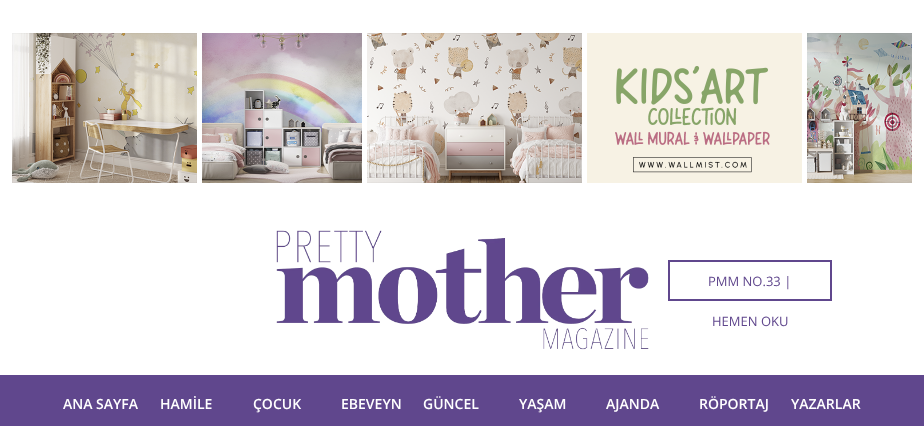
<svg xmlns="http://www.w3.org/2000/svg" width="924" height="426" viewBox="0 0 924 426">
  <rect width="100%" height="100%" fill="rgb(255,255,255)"/>
  <image x="12" y="33" width="900" height="150" href="pic1.png"/>
  <image x="276" y="230" width="373" height="120" href="pic2.png"/>
  <rect x="669" y="261" width="162" height="39" fill="none" stroke="rgb(96,71,141)" stroke-width="2"/>
  <g font-family="Open Sans" font-size="13" fill="rgb(96,71,141)">
    <text x="708" y="286">PMM NO.33 |</text>
    <text x="712" y="326">HEMEN OKU</text>
  </g>
  <rect x="0" y="375" width="924" height="51" fill="rgb(96,71,141)"/>
  <g font-family="Open Sans" font-size="14" font-weight="600" fill="rgb(255,255,255)">
    <text x="63" y="409">ANA SAYFA</text>
    <text x="160" y="409">HAMİLE</text>
    <text x="253" y="409">ÇOCUK</text>
    <text x="341" y="409">EBEVEYN</text>
    <text x="423" y="409">GÜNCEL</text>
    <text x="519" y="409">YAŞAM</text>
    <text x="606" y="409">AJANDA</text>
    <text x="699" y="409">RÖPORTAJ</text>
    <text x="791" y="409">YAZARLAR</text>
  </g>
</svg>
